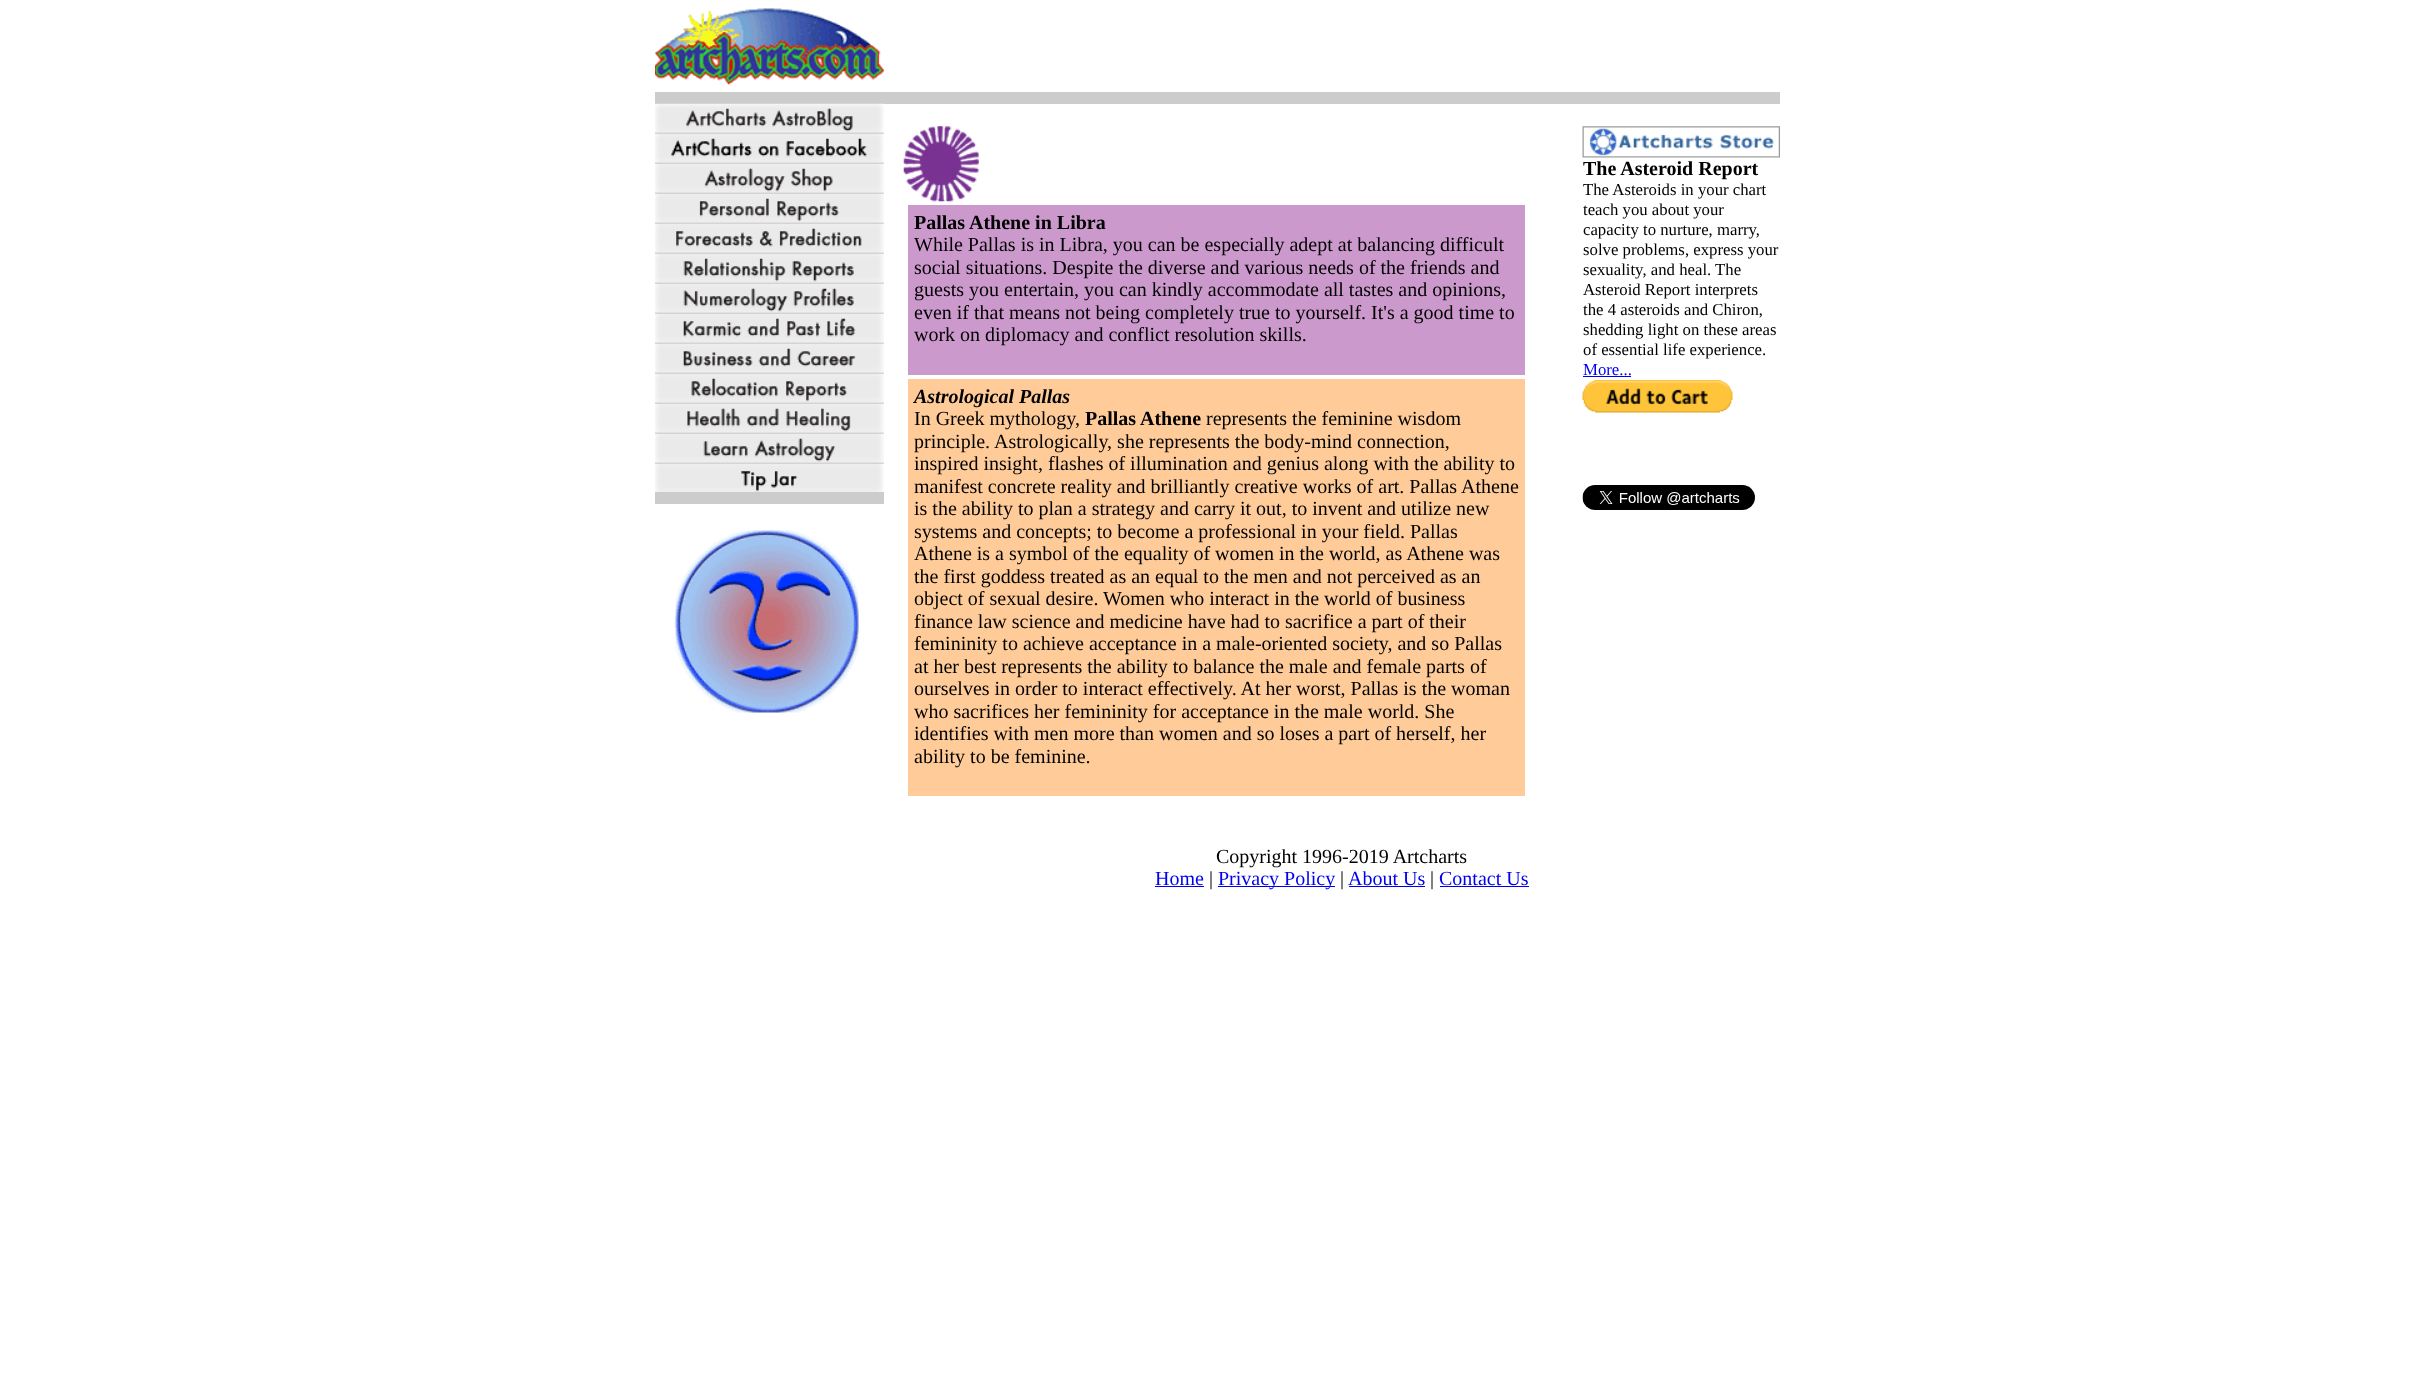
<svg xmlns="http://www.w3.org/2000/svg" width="2434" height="1394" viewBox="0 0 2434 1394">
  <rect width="100%" height="100%" fill="rgb(255,255,255)"/>
  <image x="655" y="8" width="229" height="77" href="pic1.png"/>
  <rect x="655" y="92" width="1125" height="12" fill="rgb(204,204,204)"/>
  <image x="655" y="103" width="229" height="30" href="pic2.png"/>
  <image x="655" y="132" width="229" height="31" href="pic3.png"/>
  <image x="655" y="162" width="229" height="31" href="pic4.png"/>
  <image x="655" y="192" width="229" height="31" href="pic5.png"/>
  <image x="655" y="222" width="229" height="31" href="pic6.png"/>
  <image x="655" y="252" width="229" height="31" href="pic7.png"/>
  <image x="655" y="282" width="229" height="31" href="pic8.png"/>
  <image x="655" y="312" width="229" height="31" href="pic9.png"/>
  <image x="655" y="342" width="229" height="31" href="pic10.png"/>
  <image x="655" y="372" width="229" height="31" href="pic11.png"/>
  <image x="655" y="402" width="229" height="31" href="pic12.png"/>
  <image x="655" y="432" width="229" height="31" href="pic13.png"/>
  <image x="655" y="462" width="229" height="30" href="pic14.png"/>
  <rect x="655" y="492" width="229" height="12" fill="rgb(204,204,204)"/>
  <image x="674" y="530" width="185" height="183" href="pic15.png"/>
  <image x="903" y="126" width="76" height="76" href="pic16.png"/>
  <image x="1582" y="126" width="198" height="32" href="pic17.png"/>
  <text x="1583" y="175" font-family="Liberation Serif" font-size="20" font-weight="bold" fill="rgb(0,0,0)">The Asteroid Report</text>
  <g font-family="Liberation Serif" font-size="16.75" fill="rgb(0,0,0)">
    <text>
      <tspan x="1583" y="195">The Asteroids in your chart</tspan>
      <tspan x="1583" y="215">teach you about your</tspan>
      <tspan x="1583" y="235">capacity to nurture, marry,</tspan>
      <tspan x="1583" y="255">solve problems, express your</tspan>
      <tspan x="1583" y="275">sexuality, and heal. The</tspan>
      <tspan x="1583" y="295">Asteroid Report interprets</tspan>
      <tspan x="1583" y="315">the 4 asteroids and Chiron,</tspan>
      <tspan x="1583" y="335">shedding light on these areas</tspan>
      <tspan x="1583" y="355">of essential life experience.</tspan>
    </text>
  </g>
  <text x="1583" y="375" font-family="Liberation Serif" font-size="16.75" fill="rgb(0,0,238)">More...</text>
  <rect x="1583" y="376" width="48" height="1" fill="rgb(0,0,238)"/>
  <image x="1582" y="380" width="151" height="33" href="pic18.png"/>
  <image x="1582" y="485" width="173" height="25" href="pic19.png"/>
  <rect x="908" y="205" width="617" height="170" fill="rgb(204,153,204)"/>
  <text x="914" y="229" font-family="Liberation Serif" font-size="20" font-weight="bold" fill="rgb(0,0,0)">Pallas Athene in Libra</text>
  <g font-family="Liberation Serif" font-size="20" fill="rgb(0,0,0)">
    <text>
      <tspan x="914" y="251">While Pallas is in Libra, you can be especially adept at balancing difficult</tspan>
      <tspan x="914" y="274">social situations. Despite the diverse and various needs of the friends and</tspan>
      <tspan x="914" y="296">guests you entertain, you can kindly accommodate all tastes and opinions,</tspan>
      <tspan x="914" y="319">even if that means not being completely true to yourself. It's a good time to</tspan>
      <tspan x="914" y="341">work on diplomacy and conflict resolution skills.</tspan>
    </text>
  </g>
  <rect x="908" y="379" width="617" height="417" fill="rgb(255,204,153)"/>
  <text x="914" y="403" font-family="Liberation Serif" font-size="20" font-weight="bold" font-style="italic" fill="rgb(0,0,0)">Astrological Pallas</text>
  <text x="914" y="425" font-family="Liberation Serif" font-size="20" fill="rgb(0,0,0)">In Greek mythology,</text>
  <text x="1085" y="425" font-family="Liberation Serif" font-size="20" font-weight="bold" fill="rgb(0,0,0)">Pallas Athene</text>
  <g font-family="Liberation Serif" font-size="20" fill="rgb(0,0,0)">
    <text x="1206" y="425">represents the feminine wisdom</text>
    <text>
      <tspan x="914" y="448">principle. Astrologically, she represents the body-mind connection,</tspan>
      <tspan x="914" y="470">inspired insight, flashes of illumination and genius along with the ability to</tspan>
      <tspan x="914" y="493">manifest concrete reality and brilliantly creative works of art. Pallas Athene</tspan>
      <tspan x="914" y="515">is the ability to plan a strategy and carry it out, to invent and utilize new</tspan>
      <tspan x="914" y="538">systems and concepts; to become a professional in your field. Pallas</tspan>
      <tspan x="914" y="560">Athene is a symbol of the equality of women in the world, as Athene was</tspan>
      <tspan x="914" y="583">the first goddess treated as an equal to the men and not perceived as an</tspan>
      <tspan x="914" y="605">object of sexual desire. Women who interact in the world of business</tspan>
      <tspan x="914" y="628">finance law science and medicine have had to sacrifice a part of their</tspan>
      <tspan x="914" y="650">femininity to achieve acceptance in a male-oriented society, and so Pallas</tspan>
      <tspan x="914" y="673">at her best represents the ability to balance the male and female parts of</tspan>
      <tspan x="914" y="695">ourselves in order to interact effectively. At her worst, Pallas is the woman</tspan>
      <tspan x="914" y="718">who sacrifices her femininity for acceptance in the male world. She</tspan>
      <tspan x="914" y="740">identifies with men more than women and so loses a part of herself, her</tspan>
      <tspan x="914" y="763">ability to be feminine.</tspan>
    </text>
    <text x="1216" y="863">Copyright 1996-2019 Artcharts</text>
  </g>
  <text x="1155" y="885" font-family="Liberation Serif" font-size="20" fill="rgb(0,0,238)">Home</text>
  <rect x="1155" y="886" width="49" height="1" fill="rgb(0,0,238)"/>
  <text x="1209" y="885" font-family="Liberation Serif" font-size="20" fill="rgb(0,0,0)">|</text>
  <rect x="1218" y="886" width="117" height="1" fill="rgb(0,0,238)"/>
  <text x="1218" y="885" font-family="Liberation Serif" font-size="20" fill="rgb(0,0,238)">Privacy Policy</text>
  <text x="1340" y="885" font-family="Liberation Serif" font-size="20" fill="rgb(0,0,0)">|</text>
  <text x="1348" y="885" font-family="Liberation Serif" font-size="20" fill="rgb(0,0,238)">About Us</text>
  <rect x="1349" y="886" width="76" height="1" fill="rgb(0,0,238)"/>
  <text x="1430" y="885" font-family="Liberation Serif" font-size="20" fill="rgb(0,0,0)">|</text>
  <text x="1439" y="885" font-family="Liberation Serif" font-size="20" fill="rgb(0,0,238)">Contact Us</text>
  <rect x="1440" y="886" width="89" height="1" fill="rgb(0,0,238)"/>
</svg>
